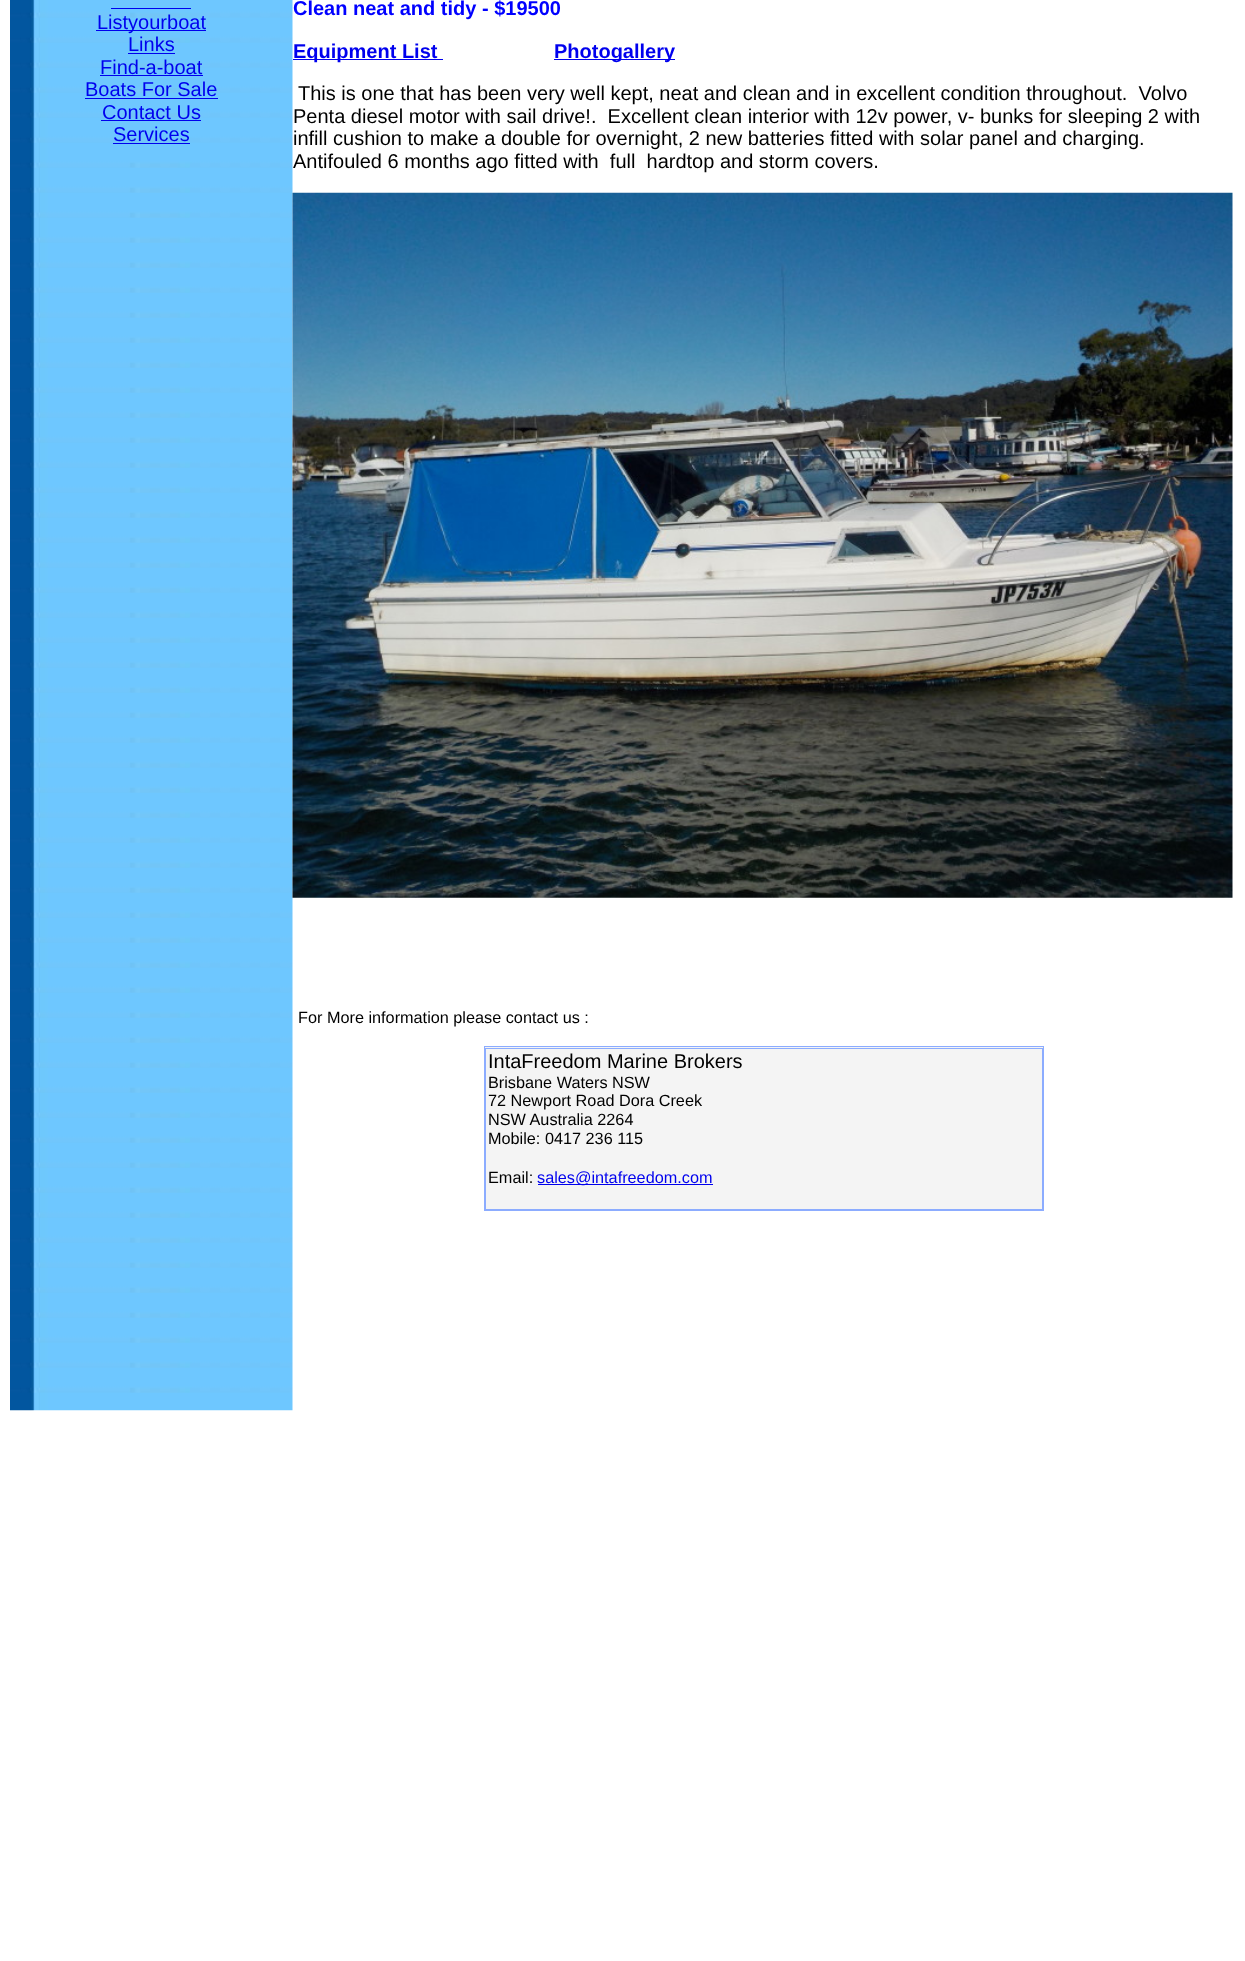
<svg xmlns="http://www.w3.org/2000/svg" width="1245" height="1961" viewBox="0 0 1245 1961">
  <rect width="100%" height="100%" fill="rgb(255,255,255)"/>
  <image x="10" y="0" width="283" height="1411" href="pic1.png"/>
  <rect x="96" y="30" width="110" height="1" fill="rgb(0,0,238)"/>
  <text x="97" y="29" font-family="Liberation Sans" font-size="20" fill="rgb(0,0,238)">Listyourboat</text>
  <rect x="111" y="8" width="80" height="1" fill="rgb(0,0,238)"/>
  <text x="128" y="51" font-family="Liberation Sans" font-size="20" fill="rgb(0,0,238)">Links</text>
  <rect x="128" y="53" width="47" height="1" fill="rgb(0,0,238)"/>
  <text x="100" y="74" font-family="Liberation Sans" font-size="20" fill="rgb(0,0,238)">Find-a-boat</text>
  <rect x="100" y="75" width="103" height="1" fill="rgb(0,0,238)"/>
  <text x="85" y="96" font-family="Liberation Sans" font-size="20" fill="rgb(0,0,238)">Boats For Sale</text>
  <rect x="85" y="98" width="133" height="1" fill="rgb(0,0,238)"/>
  <text x="102" y="119" font-family="Liberation Sans" font-size="20" fill="rgb(0,0,238)">Contact Us</text>
  <rect x="101" y="120" width="100" height="1" fill="rgb(0,0,238)"/>
  <text x="113" y="141" font-family="Liberation Sans" font-size="20" fill="rgb(0,0,238)">Services</text>
  <rect x="113" y="143" width="77" height="1" fill="rgb(0,0,238)"/>
  <text x="293" y="15" font-family="Liberation Sans" font-size="20" font-weight="bold" fill="rgb(0,0,255)">Clean neat and tidy - $19500</text>
  <rect x="293" y="59" width="150" height="1" fill="rgb(0,0,238)"/>
  <text x="293" y="58" font-family="Liberation Sans" font-size="20" font-weight="bold" fill="rgb(0,0,238)">Equipment List</text>
  <rect x="554" y="59" width="121" height="1" fill="rgb(0,0,238)"/>
  <text x="554" y="58" font-family="Liberation Sans" font-size="20" font-weight="bold" fill="rgb(0,0,238)">Photogallery</text>
  <g font-family="Liberation Sans" font-size="20" fill="rgb(0,0,0)">
    <text x="298" y="100" xml:space="preserve">This is one that has been very well kept, neat and clean and in excellent condition throughout.  Volvo</text>
    <text xml:space="preserve"><tspan x="293" y="123">Penta diesel motor with sail drive!.  Excellent clean interior with 12v power, v- bunks for sleeping 2 with</tspan><tspan x="293" y="145">infill cushion to make a double for overnight, 2 new batteries fitted with solar panel and charging.</tspan><tspan x="293" y="168">Antifouled 6 months ago fitted with  full  hardtop and storm covers.</tspan></text>
  </g>
  <image x="292" y="192" width="941" height="706" href="pic2.png"/>
  <text x="298" y="1023" font-family="Liberation Sans" font-size="16.25" fill="rgb(0,0,0)">For More information please contact us :</text>
  <rect x="485" y="1047" width="558" height="162" fill="rgb(244,244,244)"/>
  <rect x="484.5" y="1046.5" width="559" height="164" fill="none" stroke="rgb(140,172,255)"/>
  <rect x="485.5" y="1048.5" width="557" height="161" fill="none" stroke="rgb(140,172,255)"/>
  <text x="488" y="1068" font-family="Liberation Sans" font-size="20" fill="rgb(0,0,0)">IntaFreedom Marine Brokers</text>
  <g font-family="Liberation Sans" font-size="16.25" fill="rgb(0,0,0)">
    <text>
      <tspan x="488" y="1088">Brisbane Waters NSW</tspan>
      <tspan x="488" y="1106">72 Newport Road Dora Creek</tspan>
      <tspan x="488" y="1125">NSW Australia 2264</tspan>
      <tspan x="488" y="1144">Mobile: 0417 236 115</tspan>
    </text>
    <text x="488" y="1183">Email:</text>
  </g>
  <rect x="538" y="1184" width="175" height="1" fill="rgb(0,0,238)"/>
  <text x="537" y="1183" font-family="Liberation Sans" font-size="16.25" fill="rgb(0,0,238)">sales@intafreedom.com</text>
</svg>
